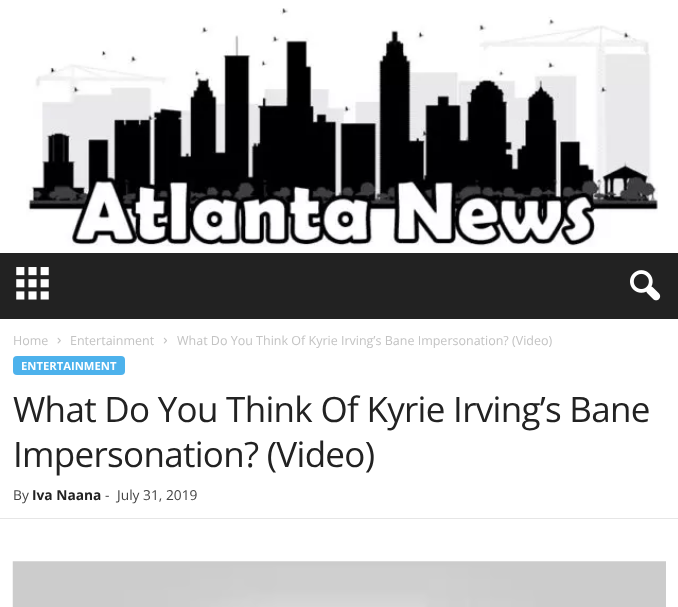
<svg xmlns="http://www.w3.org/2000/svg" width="678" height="607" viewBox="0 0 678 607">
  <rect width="100%" height="100%" fill="rgb(255,255,255)"/>
  <image x="26" y="8" width="632" height="239" href="pic1.png"/>
  <rect x="0" y="253" width="678" height="66" fill="rgb(34,34,34)"/>
  <image x="16" y="267" width="33" height="33" href="pic2.png"/>
  <image x="630" y="270" width="31" height="31" href="pic3.png"/>
  <text x="13" y="345" font-family="Open Sans" font-size="12.5" fill="rgb(195,195,195)">Home</text>
  <image x="57" y="337" width="4" height="7" href="pic4.png"/>
  <text x="70" y="345" font-family="Open Sans" font-size="12.5" fill="rgb(195,195,195)">Entertainment</text>
  <image x="163" y="337" width="4" height="7" href="pic5.png"/>
  <text x="177" y="345" font-family="Open Sans" font-size="12.5" fill="rgb(195,195,195)">What Do You Think Of Kyrie Irving’s Bane Impersonation? (Video)</text>
  <rect x="13" y="356" width="112" height="19" rx="4" fill="rgb(77,178,236)"/>
  <text x="21" y="370" font-family="Open Sans" font-size="11.25" font-weight="bold" fill="rgb(255,255,255)">ENTERTAINMENT</text>
  <g font-family="Open Sans" font-size="35" letter-spacing="-0.7" fill="rgb(34,34,34)">
    <text>
      <tspan x="13" y="422">What Do You Think Of Kyrie Irving’s Bane</tspan>
      <tspan x="13" y="467">Impersonation? (Video)</tspan>
    </text>
  </g>
  <text x="13" y="500" font-family="Open Sans" font-size="13.75" fill="rgb(68,68,68)">By</text>
  <text x="32" y="500" font-family="Open Sans" font-size="13.75" font-weight="bold" fill="rgb(34,34,34)">Iva Naana</text>
  <g font-family="Open Sans" font-size="13.75" fill="rgb(68,68,68)">
    <text x="105" y="500">-</text>
    <text x="117" y="500">July 31, 2019</text>
  </g>
  <rect x="0" y="518" width="678" height="1" fill="rgb(230,230,230)"/>
  <image x="12" y="561" width="654" height="46" href="pic6.png"/>
</svg>
